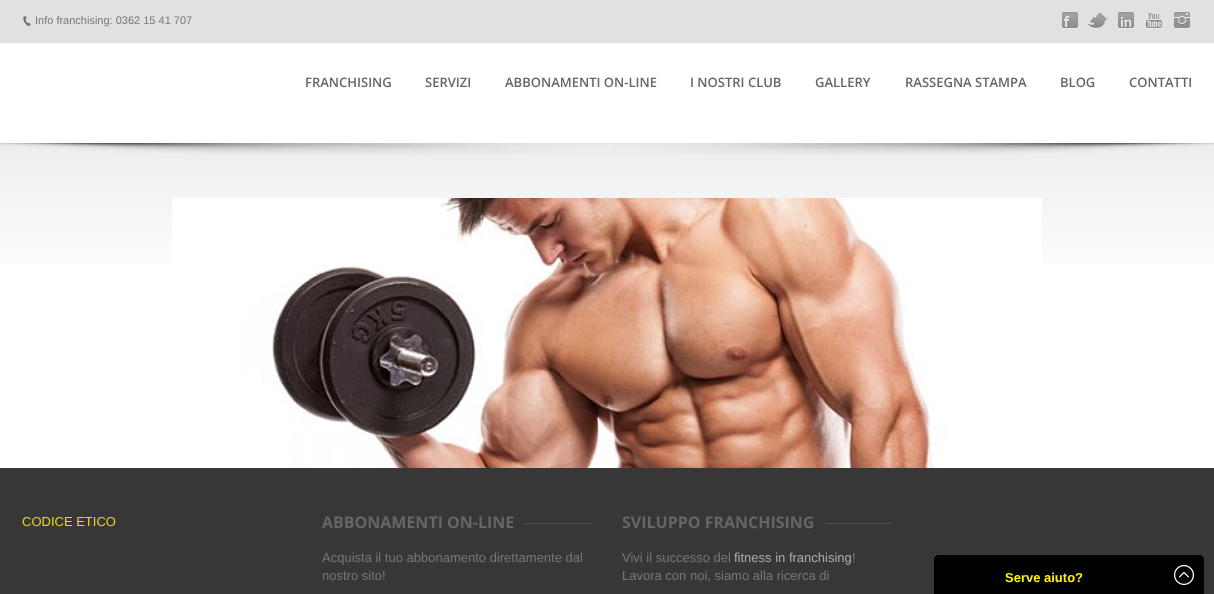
<svg xmlns="http://www.w3.org/2000/svg" width="1214" height="594" viewBox="0 0 1214 594">
  <defs>
    <linearGradient id="g1" gradientUnits="userSpaceOnUse" x1="607" y1="143" x2="607" y2="283"><stop offset="0" stop-color="rgb(237,237,237)"/><stop offset="1" stop-color="rgb(255,255,255)"/></linearGradient>
  </defs>
  <rect width="100%" height="100%" fill="rgb(255,255,255)"/>
  <rect x="0" y="0" width="1214" height="43" fill="rgb(225,225,225)"/>
  <image x="23" y="15" width="8" height="11" href="pic1.png"/>
  <text x="35" y="24" font-family="Liberation Sans" font-size="11" fill="rgb(119,119,119)">Info franchising: 0362 15 41 707</text>
  <image x="1062" y="12" width="16" height="17" href="pic2.png"/>
  <image x="1088" y="13" width="20" height="16" href="pic3.png"/>
  <image x="1118" y="12" width="16" height="17" href="pic4.png"/>
  <image x="1146" y="13" width="16" height="16" href="pic5.png"/>
  <image x="1174" y="12" width="16" height="17" href="pic6.png"/>
  <g font-family="Open Sans" font-size="13" font-weight="600" fill="rgb(102,102,102)">
    <text x="305" y="87">FRANCHISING</text>
    <text x="425" y="87">SERVIZI</text>
    <text x="505" y="87">ABBONAMENTI ON-LINE</text>
    <text x="690" y="87">I NOSTRI CLUB</text>
    <text x="815" y="87">GALLERY</text>
    <text x="905" y="87">RASSEGNA STAMPA</text>
    <text x="1060" y="87">BLOG</text>
    <text x="1129" y="87">CONTATTI</text>
  </g>
  <rect x="0" y="143" width="1214" height="121" fill="url(#g1)"/>
  <image x="0" y="143" width="1214" height="12" href="pic7.png"/>
  <image x="172" y="198" width="870" height="270" href="pic8.png"/>
  <rect x="0" y="468" width="1214" height="126" fill="rgb(55,55,55)"/>
  <text x="22" y="526" font-family="Liberation Sans" font-size="13" fill="rgb(235,214,23)">CODICE ETICO</text>
  <rect x="525" y="523" width="67" height="1" fill="rgb(77,77,77)"/>
  <text x="322" y="528" font-family="Open Sans" font-size="16" font-weight="bold" fill="rgb(102,102,102)">ABBONAMENTI ON-LINE</text>
  <g font-family="Liberation Sans" font-size="13" fill="rgb(119,119,119)">
    <text>
      <tspan x="322" y="562">Acquista il tuo abbonamento direttamente dal</tspan>
      <tspan x="322" y="580">nostro sito!</tspan>
    </text>
  </g>
  <rect x="825" y="523" width="67" height="1" fill="rgb(77,77,77)"/>
  <text x="622" y="528" font-family="Open Sans" font-size="16" font-weight="bold" fill="rgb(102,102,102)">SVILUPPO FRANCHISING</text>
  <text x="622" y="562" font-family="Liberation Sans" font-size="13" fill="rgb(119,119,119)">Vivi il successo del</text>
  <text x="734" y="562" font-family="Liberation Sans" font-size="13" fill="rgb(171,171,171)">fitness in franchising</text>
  <g font-family="Liberation Sans" font-size="13" fill="rgb(119,119,119)">
    <text x="852" y="562">!</text>
    <text x="622" y="580">Lavora con noi, siamo alla ricerca di</text>
  </g>
  <path d="M939 555H1199C1202 555 1204 557 1204 560V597H934V560C934 557 936 555 939 555Z" fill="rgb(0,0,0)"/>
  <text x="1005" y="582" font-family="Liberation Sans" font-size="13" font-weight="bold" fill="rgb(255,240,0)">Serve aiuto?</text>
  <image x="1174" y="565" width="20" height="20" href="pic9.png"/>
</svg>
